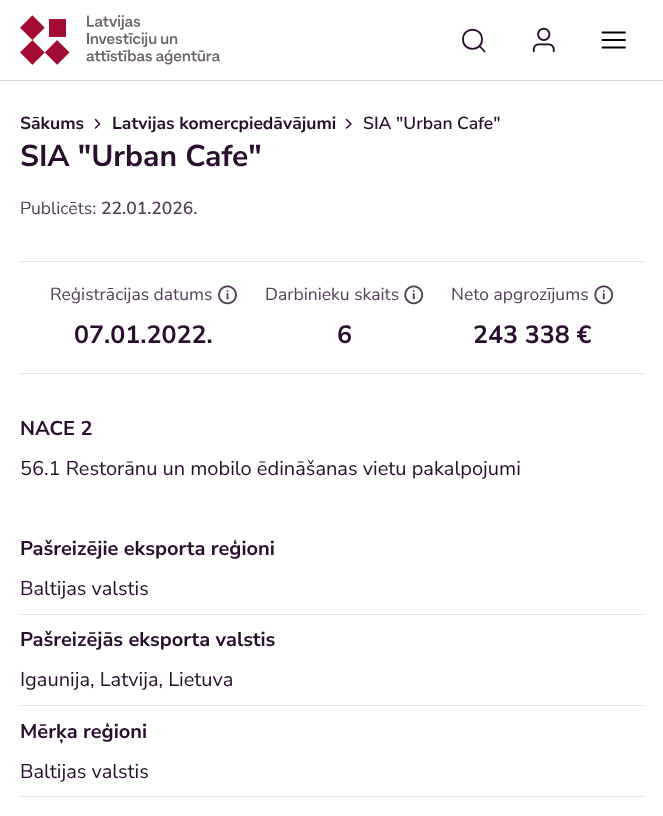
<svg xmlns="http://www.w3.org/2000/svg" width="663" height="816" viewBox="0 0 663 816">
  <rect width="100%" height="100%" fill="rgb(255,255,255)"/>
  <rect x="0" y="80" width="663" height="1" fill="rgb(214,211,214)"/>
  <image x="20" y="15" width="200" height="50" href="pic1.png"/>
  <path d="M484.5 51.5L479.5 46M482 39.5C482 52 463 52 463 39.5C463 26.5 482 26.5 482 39.5Z" fill="none" stroke="rgb(41,14,46)" stroke-width="1.8" stroke-linecap="round" stroke-linejoin="round"/>
  <image x="532" y="27" width="23" height="26" href="pic2.png"/>
  <path d="M602.5 40H625M602.5 32.5H625M602.5 47.5H625" fill="none" stroke="rgb(0,0,0)" stroke-width="1.9" stroke-linecap="round" stroke-linejoin="round"/>
  <text x="20" y="129" font-family="Nunito Sans" font-size="17.5" font-weight="bold" fill="rgb(41,14,46)">Sākums</text>
  <path d="M95.5 128L99.5 124L95.5 119.5" fill="none" stroke="rgb(41,14,46)" stroke-width="1.5" stroke-linecap="round" stroke-linejoin="round"/>
  <text x="112" y="129" font-family="Nunito Sans" font-size="17.5" font-weight="bold" fill="rgb(41,14,46)">Latvijas komercpiedāvājumi</text>
  <path d="M346.5 128L351 124L346.5 119.5" fill="none" stroke="rgb(41,14,46)" stroke-width="1.5" stroke-linecap="round" stroke-linejoin="round"/>
  <text x="363" y="129" font-family="Nunito Sans" font-size="17.5" font-weight="600" fill="rgb(41,14,46)">SIA "Urban Cafe"</text>
  <text x="20" y="166" font-family="Nunito Sans" font-size="30" font-weight="bold" fill="rgb(41,14,46)">SIA "Urban Cafe"</text>
  <text x="20" y="214" font-family="Nunito Sans" font-size="17.5" fill="rgb(84,62,88)">Publicēts:</text>
  <text x="101" y="214" font-family="Nunito Sans" font-size="17.5" font-weight="600" fill="rgb(84,62,88)">22.01.2026.</text>
  <rect x="20" y="261" width="624" height="1" fill="rgb(226,232,240)"/>
  <rect x="20" y="373" width="624" height="1" fill="rgb(226,232,240)"/>
  <text x="50" y="300" font-family="Nunito Sans" font-size="17.5" fill="rgb(84,62,88)">Reģistrācijas datums</text>
  <image x="218" y="285" width="19" height="20" href="pic3.png"/>
  <text x="74" y="343" font-family="Nunito Sans" font-size="25" font-weight="bold" fill="rgb(41,14,46)">07.01.2022.</text>
  <text x="265" y="300" font-family="Nunito Sans" font-size="17.5" fill="rgb(84,62,88)">Darbinieku skaits</text>
  <image x="404" y="285" width="20" height="20" href="pic4.png"/>
  <text x="337" y="343" font-family="Nunito Sans" font-size="25" font-weight="bold" fill="rgb(41,14,46)">6</text>
  <text x="451" y="300" font-family="Nunito Sans" font-size="17.5" fill="rgb(84,62,88)">Neto apgrozījums</text>
  <image x="594" y="285" width="20" height="20" href="pic4.png"/>
  <text x="473" y="343" font-family="Nunito Sans" font-size="25" font-weight="bold" fill="rgb(41,14,46)">243 338 €</text>
  <text x="20" y="435" font-family="Nunito Sans" font-size="20" font-weight="bold" fill="rgb(41,14,46)">NACE 2</text>
  <text x="20" y="475" font-family="Nunito Sans" font-size="20" fill="rgb(41,14,46)">56.1 Restorānu un mobilo ēdināšanas vietu pakalpojumi</text>
  <text x="20" y="555" font-family="Nunito Sans" font-size="20" font-weight="bold" fill="rgb(41,14,46)">Pašreizējie eksporta reģioni</text>
  <rect x="20" y="614" width="624" height="1" fill="rgb(226,232,240)"/>
  <text x="20" y="595" font-family="Nunito Sans" font-size="20" fill="rgb(41,14,46)">Baltijas valstis</text>
  <text x="20" y="646" font-family="Nunito Sans" font-size="20" font-weight="bold" fill="rgb(41,14,46)">Pašreizējās eksporta valstis</text>
  <rect x="20" y="705" width="624" height="1" fill="rgb(226,232,240)"/>
  <text x="20" y="686" font-family="Nunito Sans" font-size="20" fill="rgb(41,14,46)">Igaunija, Latvija, Lietuva</text>
  <text x="20" y="738" font-family="Nunito Sans" font-size="20" font-weight="bold" fill="rgb(41,14,46)">Mērķa reģioni</text>
  <rect x="20" y="796" width="624" height="1" fill="rgb(226,232,240)"/>
  <text x="20" y="778" font-family="Nunito Sans" font-size="20" fill="rgb(41,14,46)">Baltijas valstis</text>
</svg>
